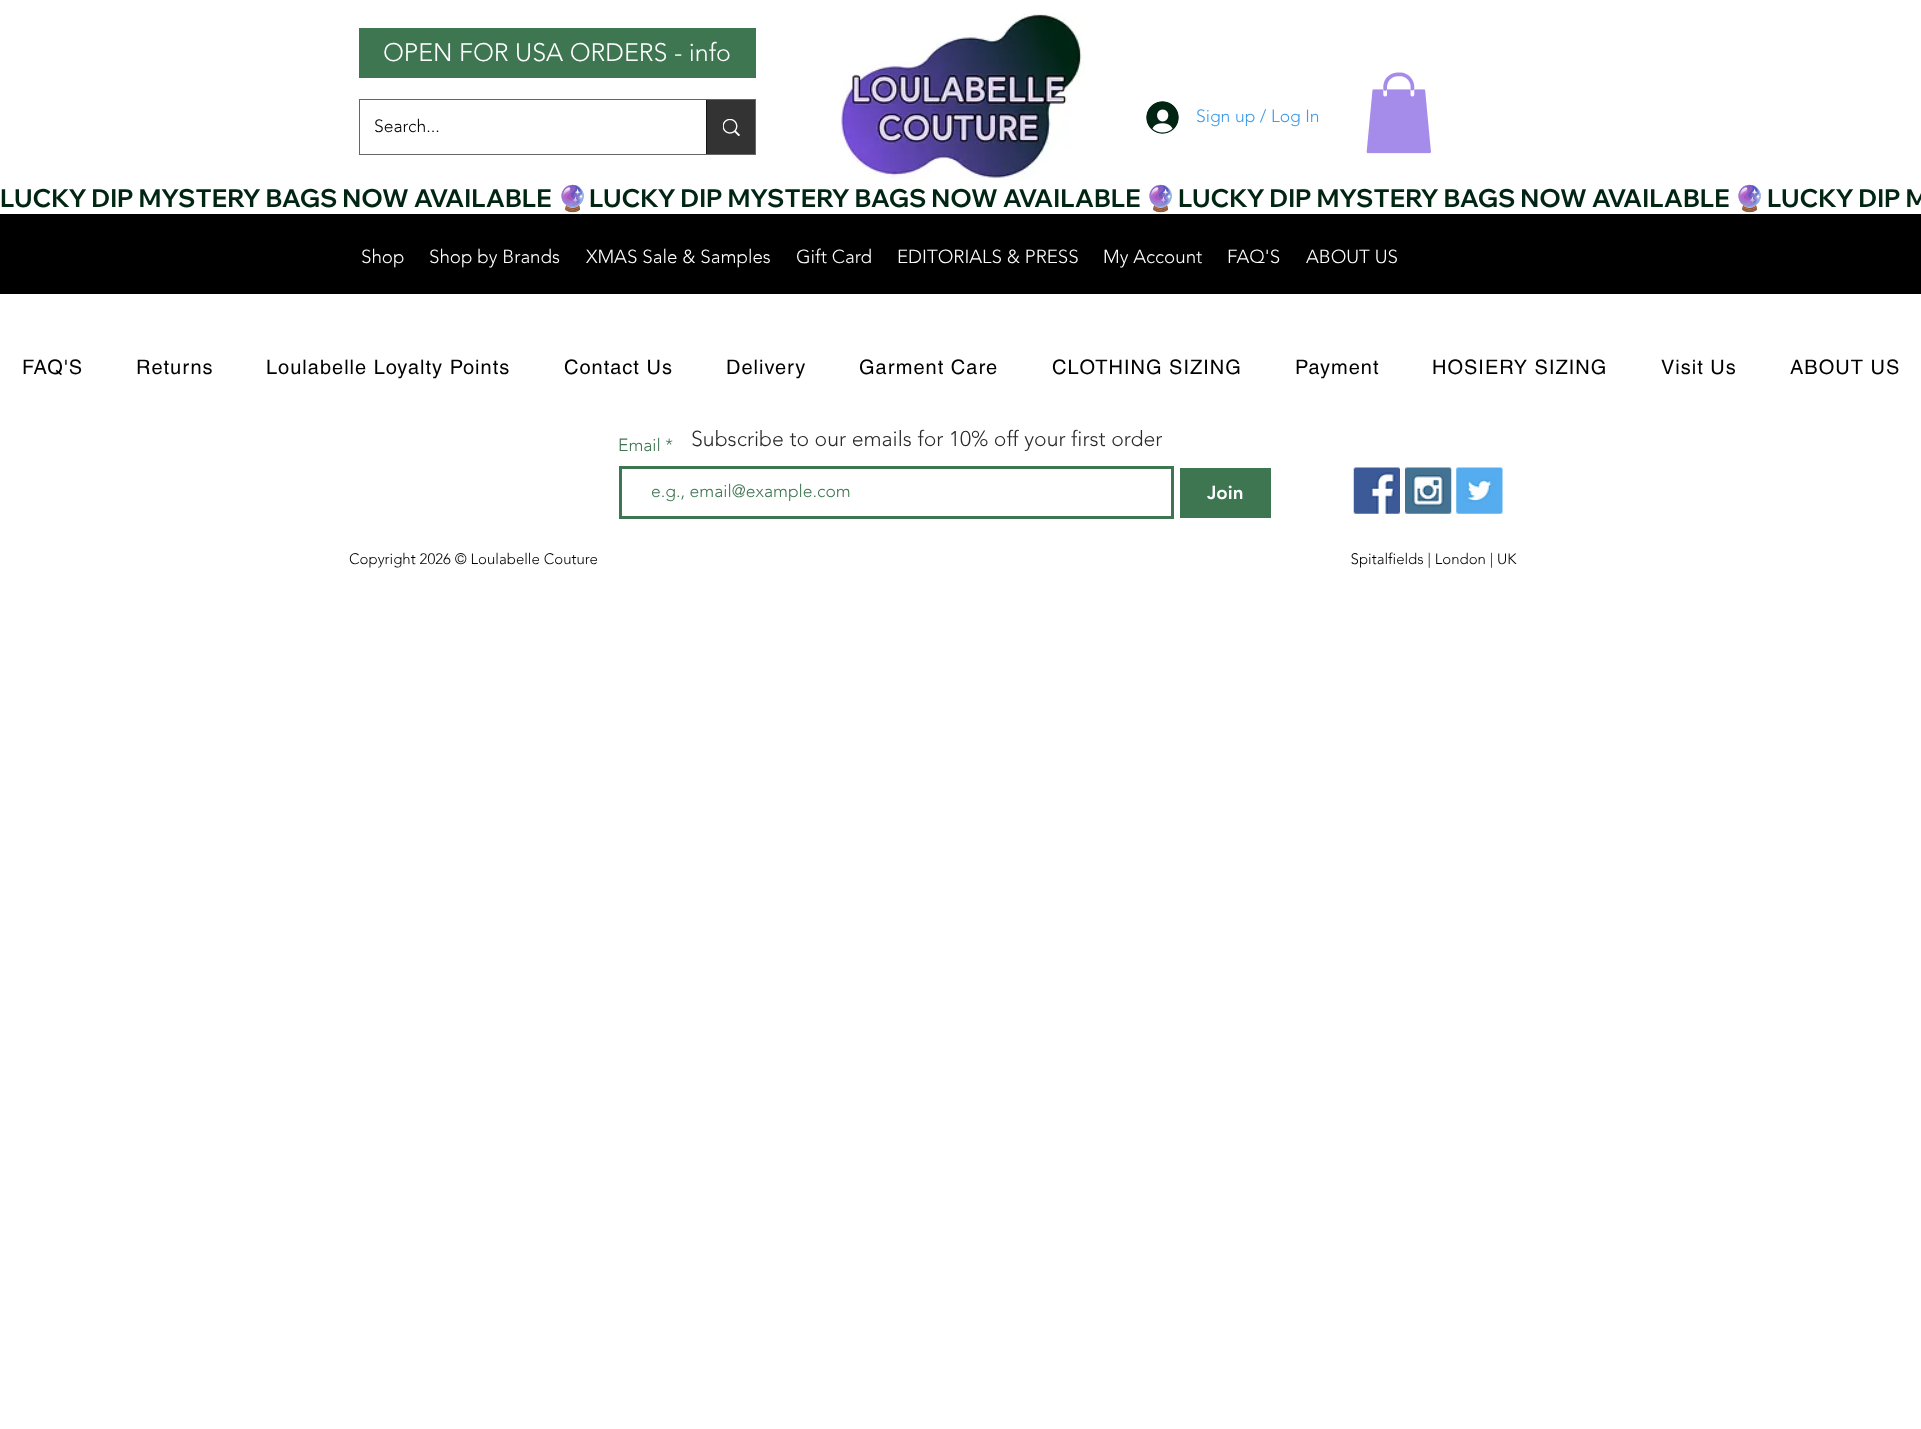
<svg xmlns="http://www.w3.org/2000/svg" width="1921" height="1429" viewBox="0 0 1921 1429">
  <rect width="100%" height="100%" fill="rgb(255,255,255)"/>
  <rect x="359" y="28" width="397" height="50" fill="rgb(63,118,82)"/>
  <text x="383" y="61" font-family="'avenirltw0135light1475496'" font-size="25" font-weight="300" fill="rgb(255,255,255)">OPEN FOR USA ORDERS - info</text>
  <image x="840" y="13" width="245" height="166" href="pic1.png"/>
  <rect x="359.5" y="99.5" width="396" height="55" fill="none" stroke="rgb(102,102,102)"/>
  <text x="374" y="132" font-family="'avenirltw0135light1475496'" font-size="17.5" font-weight="300" fill="rgb(0,0,0)">Search...</text>
  <rect x="707" y="100" width="48" height="54" fill="rgb(51,51,51)"/>
  <rect x="706" y="100" width="1" height="54" fill="rgb(20,20,20)"/>
  <image x="723" y="119" width="17" height="17" href="pic2.png"/>
  <image x="1146" y="101" width="33" height="33" href="pic3.png"/>
  <text x="1196" y="122" font-family="'avenirltw0135light1475496'" font-size="17.5" font-weight="300" fill="rgb(61,155,233)">Sign up / Log In</text>
  <image x="1366" y="72" width="65" height="82" href="pic4.png"/>
  <text x="0" y="207" font-family="Wix Madefor Display" font-size="25" font-weight="bold" fill="rgb(0,37,19)">LUCKY DIP MYSTERY BAGS NOW AVAILABLE</text>
  <text x="557" y="207" font-family="Noto Color Emoji" font-size="25" fill="rgb(0,37,19)">🔮</text>
  <text x="589" y="207" font-family="Wix Madefor Display" font-size="25" font-weight="bold" fill="rgb(0,37,19)">LUCKY DIP MYSTERY BAGS NOW AVAILABLE</text>
  <text x="1145" y="207" font-family="Noto Color Emoji" font-size="25" fill="rgb(0,37,19)">🔮</text>
  <text x="1178" y="207" font-family="Wix Madefor Display" font-size="25" font-weight="bold" fill="rgb(0,37,19)">LUCKY DIP MYSTERY BAGS NOW AVAILABLE</text>
  <text x="1734" y="207" font-family="Noto Color Emoji" font-size="25" fill="rgb(0,37,19)">🔮</text>
  <text x="1767" y="207" font-family="Wix Madefor Display" font-size="25" font-weight="bold" fill="rgb(0,37,19)">LUCKY DIP M</text>
  <rect x="0" y="214" width="1921" height="80" fill="rgb(0,0,0)"/>
  <g font-family="'avenirltw0135light1475496'" font-size="18.75" font-weight="300" fill="rgb(255,255,255)">
    <text x="361" y="263">Shop</text>
    <text x="429" y="263">Shop by Brands</text>
    <text x="586" y="263">XMAS Sale &amp; Samples</text>
    <text x="796" y="263">Gift Card</text>
    <text x="897" y="263">EDITORIALS &amp; PRESS</text>
    <text x="1103" y="263">My Account</text>
    <text x="1227" y="263">FAQ'S</text>
    <text x="1306" y="263">ABOUT US</text>
  </g>
  <g font-family="helvetica" font-size="20" letter-spacing="1" fill="rgb(0,0,0)">
    <text x="22" y="374">FAQ'S</text>
    <text x="136" y="374">Returns</text>
    <text x="266" y="374">Loulabelle Loyalty Points</text>
    <text x="564" y="374">Contact Us</text>
    <text x="726" y="374">Delivery</text>
    <text x="859" y="374">Garment Care</text>
    <text x="1052" y="374">CLOTHING SIZING</text>
    <text x="1295" y="374">Payment</text>
    <text x="1432" y="374">HOSIERY SIZING</text>
    <text x="1661" y="374">Visit Us</text>
    <text x="1790" y="374">ABOUT US</text>
  </g>
  <text x="691" y="446" font-family="'avenirltw0135light1475496'" font-size="21.25" font-weight="300" fill="rgb(42,42,42)">Subscribe to our emails for 10% off your first order</text>
  <text x="618" y="451" font-family="'avenirltw0135light1475496'" font-size="17.5" font-weight="300" fill="rgb(63,118,82)">Email *</text>
  <rect x="620.5" y="467.5" width="552" height="50" fill="none" stroke="rgb(63,118,82)" stroke-width="3"/>
  <text x="651" y="497" font-family="'avenirltw0135light1475496'" font-size="17.5" font-weight="300" fill="rgb(63,118,82)">e.g., email@example.com</text>
  <rect x="1180" y="468" width="91" height="50" fill="rgb(63,118,82)"/>
  <text x="1207" y="499" font-family="'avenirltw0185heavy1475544'" font-size="18.75" font-weight="900" fill="rgb(255,255,255)">Join</text>
  <image x="1353" y="467" width="47" height="47" href="pic5.png"/>
  <image x="1405" y="467" width="47" height="47" href="pic6.png"/>
  <image x="1456" y="467" width="47" height="47" href="pic7.png"/>
  <text x="349" y="564" font-family="'avenirltw0135light1475496'" font-size="15" font-weight="300" fill="rgb(0,0,0)" xml:space="preserve">Copyright 2026 © Loulabelle Couture                                                                                                                                                                                                 Spitalfields | London | UK</text>
</svg>
